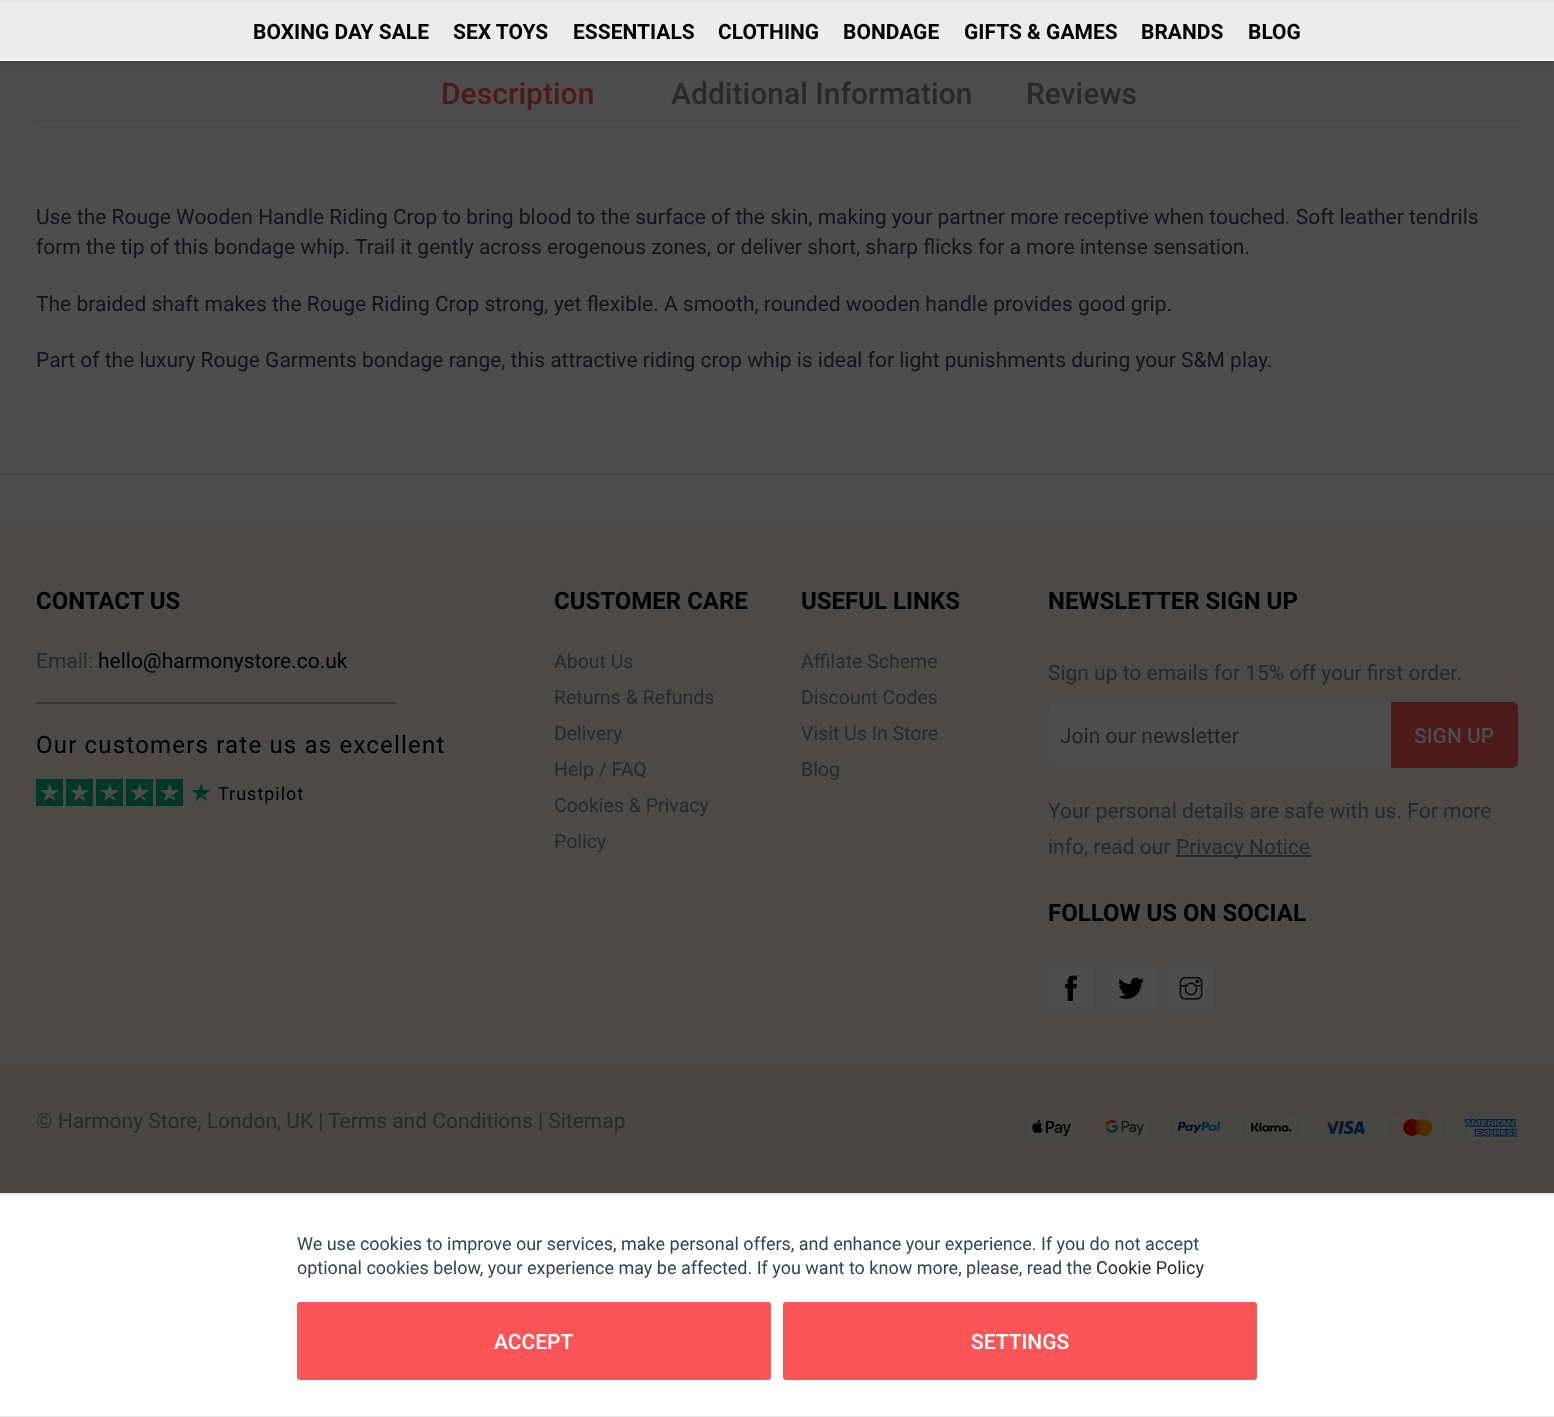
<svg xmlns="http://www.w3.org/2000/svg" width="1554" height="1417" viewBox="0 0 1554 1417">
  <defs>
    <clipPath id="clip1"><rect x="1061" y="720" width="445" height="29"/></clipPath>
  </defs>
  <rect width="100%" height="100%" fill="rgb(77,77,77)"/>
  <rect x="0" y="0" width="1554" height="60" fill="rgba(0,0,0,0.2)" filter="blur(4px)"/>
  <rect x="0" y="2" width="1554" height="57" fill="rgb(236,236,236)"/>
  <rect x="0" y="0" width="1554" height="2" fill="rgb(232,232,232)"/>
  <rect x="0" y="59" width="1554" height="2" fill="rgb(247,247,247)"/>
  <g font-family="Roboto" font-size="21" font-weight="bold" fill="rgb(0,0,0)">
    <text x="253" y="39">BOXING DAY SALE</text>
    <text x="453" y="39">SEX TOYS</text>
    <text x="573" y="39">ESSENTIALS</text>
    <text x="718" y="39">CLOTHING</text>
    <text x="843" y="39">BONDAGE</text>
    <text x="964" y="39">GIFTS &amp; GAMES</text>
    <text x="1141" y="39">BRANDS</text>
    <text x="1248" y="39">BLOG</text>
  </g>
  <rect x="0" y="473" width="1554" height="2" fill="rgb(72,72,72)"/>
  <rect x="36" y="120" width="1482" height="2" fill="rgb(72,72,72)"/>
  <text x="441" y="104" font-family="Roboto" font-size="30" font-weight="500" fill="rgb(77,25,25)">Description</text>
  <g font-family="Roboto" font-size="30" font-weight="500" fill="rgb(41,41,41)">
    <text x="671" y="104">Additional Information</text>
    <text x="1026" y="104">Reviews</text>
  </g>
  <g font-family="Roboto" font-size="21" fill="rgb(17,20,24)">
    <text>
      <tspan x="36" y="224">Use the Rouge Wooden Handle Riding Crop to bring blood to the surface of the skin, making your partner more receptive when touched. Soft leather tendrils</tspan>
      <tspan x="36" y="254">form the tip of this bondage whip. Trail it gently across erogenous zones, or deliver short, sharp flicks for a more intense sensation.</tspan>
    </text>
    <text x="36" y="311">The braided shaft makes the Rouge Riding Crop strong, yet flexible. A smooth, rounded wooden handle provides good grip.</text>
    <text x="36" y="367">Part of the luxury Rouge Garments bondage range, this attractive riding crop whip is ideal for light punishments during your S&amp;M play.</text>
  </g>
  <rect x="0" y="522" width="1554" height="540" fill="rgb(76,74,72)"/>
  <text x="36" y="609" font-family="Roboto" font-size="24" font-weight="bold" fill="rgb(0,0,0)">CONTACT US</text>
  <text x="36" y="668" font-family="Roboto" font-size="21" fill="rgb(41,41,41)">Email:</text>
  <text x="98" y="668" font-family="Roboto" font-size="21" fill="rgb(0,0,0)">hello@harmonystore.co.uk</text>
  <rect x="36" y="702" width="360" height="2" fill="rgb(54,53,50)"/>
  <text x="36" y="753" font-family="Roboto" font-size="24" letter-spacing="1.2" fill="rgb(0,0,0)">Our customers rate us as excellent</text>
  <image x="36" y="779" width="147" height="27" href="pic1.png"/>
  <image x="191" y="783" width="20" height="19" href="pic2.png"/>
  <text x="218" y="800" font-family="Roboto" font-size="18" letter-spacing="1" fill="rgb(0,0,0)">Trustpilot</text>
  <text x="554" y="609" font-family="Roboto" font-size="24" font-weight="bold" fill="rgb(0,0,0)">CUSTOMER CARE</text>
  <g font-family="Roboto" font-size="19.5" fill="rgb(41,41,41)">
    <text>
      <tspan x="554" y="668">About Us</tspan>
      <tspan x="554" y="704">Returns &amp; Refunds</tspan>
      <tspan x="554" y="740">Delivery</tspan>
      <tspan x="554" y="776">Help / FAQ</tspan>
      <tspan x="554" y="812">Cookies &amp; Privacy</tspan>
      <tspan x="554" y="848">Policy</tspan>
    </text>
  </g>
  <text x="801" y="609" font-family="Roboto" font-size="24" font-weight="bold" fill="rgb(0,0,0)">USEFUL LINKS</text>
  <g font-family="Roboto" font-size="19.5" fill="rgb(41,41,41)">
    <text>
      <tspan x="801" y="668">Affilate Scheme</tspan>
      <tspan x="801" y="704">Discount Codes</tspan>
      <tspan x="801" y="740">Visit Us In Store</tspan>
      <tspan x="801" y="776">Blog</tspan>
    </text>
  </g>
  <text x="1048" y="609" font-family="Roboto" font-size="24" font-weight="bold" fill="rgb(0,0,0)">NEWSLETTER SIGN UP</text>
  <text x="1048" y="680" font-family="Roboto" font-size="21" fill="rgb(41,41,41)">Sign up to emails for 15% off your first order.</text>
  <rect x="1049" y="702" width="469" height="66" rx="6" fill="rgb(77,77,77)"/>
  <g clip-path="url(#clip1)">
    <text x="1060" y="743" font-family="Roboto" font-size="21" fill="rgb(32,34,38)">Join our newsletter</text>
  </g>
  <path d="M1391 702H1512C1515.5 702 1518 704.5 1518 708V762C1518 765.5 1515.5 768 1512 768H1391Z" fill="rgb(77,25,25)"/>
  <text x="1414" y="743" font-family="Roboto" font-size="21" font-weight="500" fill="rgb(77,77,77)">SIGN UP</text>
  <g font-family="Roboto" font-size="21" fill="rgb(41,41,41)">
    <text>
      <tspan x="1048" y="818">Your personal details are safe with us. For more</tspan>
      <tspan x="1048" y="854">info, read our</tspan>
    </text>
  </g>
  <rect x="1176" y="855" width="134" height="2" fill="rgb(41,41,41)"/>
  <text x="1176" y="854" font-family="Roboto" font-size="21" fill="rgb(41,41,41)">Privacy Notice</text>
  <text x="1048" y="921" font-family="Roboto" font-size="24" font-weight="bold" fill="rgb(0,0,0)">FOLLOW US ON SOCIAL</text>
  <rect x="1049" y="966" width="45" height="45" fill="rgb(77,77,77)"/>
  <image x="1065" y="975" width="12" height="26" href="pic3.png"/>
  <rect x="1109" y="966" width="45" height="45" fill="rgb(77,77,77)"/>
  <image x="1118" y="977" width="26" height="22" href="pic4.png"/>
  <rect x="1169" y="966" width="45" height="45" fill="rgb(77,77,77)"/>
  <image x="1179" y="977" width="24" height="23" href="pic5.png"/>
  <rect x="0" y="1064" width="1554" height="129" fill="rgb(73,71,68)"/>
  <g font-family="Roboto" font-size="21" fill="rgb(41,41,41)">
    <text x="36" y="1128">© Harmony Store, London, UK |</text>
    <text x="328" y="1128">Terms and Conditions | Sitemap</text>
  </g>
  <image x="1024" y="1112" width="494" height="31" href="pic6.png"/>
  <rect x="0" y="1195" width="1554" height="221" fill="rgb(255,255,255)"/>
  <rect x="0" y="1193" width="1554" height="2" fill="rgb(229,231,235)"/>
  <rect x="0" y="1416" width="1554" height="1" fill="rgb(229,231,235)"/>
  <g font-family="Roboto" font-size="18" fill="rgb(55,65,81)">
    <text>
      <tspan x="297" y="1250">We use cookies to improve our services, make personal offers, and enhance your experience. If you do not accept</tspan>
      <tspan x="297" y="1274">optional cookies below, your experience may be affected. If you want to know more, please, read the</tspan>
    </text>
  </g>
  <text x="1096" y="1274" font-family="Roboto" font-size="18" fill="rgb(41,41,41)">Cookie Policy</text>
  <rect x="297" y="1302" width="474" height="78" rx="3" fill="rgb(252,85,88)"/>
  <text x="494" y="1349" font-family="Roboto" font-size="21" font-weight="500" fill="rgb(255,255,255)">ACCEPT</text>
  <rect x="783" y="1302" width="474" height="78" rx="3" fill="rgb(252,85,88)"/>
  <text x="971" y="1349" font-family="Roboto" font-size="21" font-weight="500" fill="rgb(255,255,255)">SETTINGS</text>
</svg>
